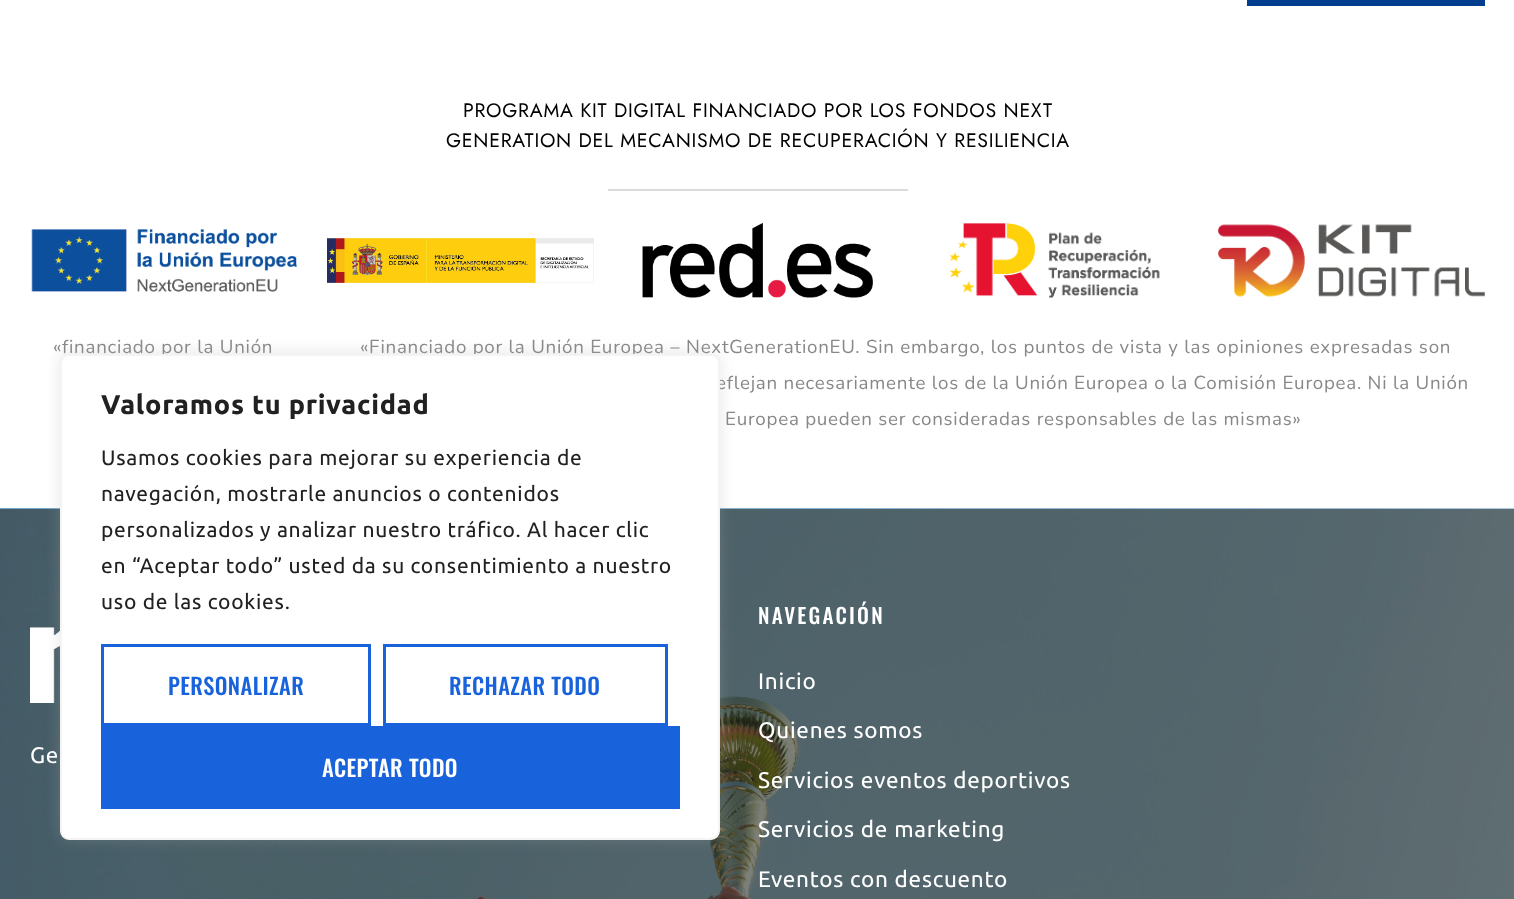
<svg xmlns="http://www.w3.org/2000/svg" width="1514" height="899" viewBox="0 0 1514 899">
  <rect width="100%" height="100%" fill="rgb(255,255,255)"/>
  <rect x="1247" y="0" width="238" height="6" fill="rgb(0,61,143)"/>
  <g font-family="Jost" font-size="19.5" letter-spacing="0.75" fill="rgb(0,0,0)">
    <text x="463" y="117">PROGRAMA KIT DIGITAL FINANCIADO POR LOS FONDOS NEXT</text>
    <text x="446" y="147">GENERATION DEL MECANISMO DE RECUPERACIÓN Y RESILIENCIA</text>
  </g>
  <rect x="608" y="189" width="300" height="2" fill="rgb(218,218,218)"/>
  <image x="31" y="229" width="266" height="63" href="pic1.png"/>
  <image x="327" y="238" width="267" height="45" href="pic2.png"/>
  <image x="642" y="223" width="231" height="75" href="pic3.png"/>
  <image x="949" y="223" width="211" height="75" href="pic4.png"/>
  <image x="1218" y="224" width="267" height="73" href="pic5.png"/>
  <g font-family="Nunito" font-size="18.75" letter-spacing="0.75" fill="rgb(136,136,136)">
    <text x="53" y="353">«financiado por la Unión</text>
    <text x="360" y="353">«Financiado por la Unión Europea – NextGenerationEU. Sin embargo, los puntos de vista y las opiniones expresadas son</text>
    <text x="716" y="389">eflejan necesariamente los de la Unión Europea o la Comisión Europea. Ni la Unión</text>
    <text x="725" y="425">Europea pueden ser consideradas responsables de las mismas»</text>
  </g>
  <image x="0" y="508" width="1514" height="391" href="pic6.png"/>
  <image x="30" y="627" width="30" height="76" href="pic7.png"/>
  <text x="30" y="763" font-family="Ubuntu" font-size="22.5" letter-spacing="0.75" fill="rgb(255,255,255)">Ge</text>
  <text x="758" y="624" font-family="Oswald" font-size="21" font-weight="500" letter-spacing="2.25" fill="rgb(255,255,255)">NAVEGACIÓN</text>
  <g font-family="Ubuntu" font-size="22.5" letter-spacing="0.75" fill="rgb(255,255,255)">
    <text x="758" y="689">Inicio</text>
    <text x="758" y="738">Quienes somos</text>
    <text x="758" y="788">Servicios eventos deportivos</text>
    <text x="758" y="837">Servicios de marketing</text>
    <text x="758" y="887">Eventos con descuento</text>
  </g>
  <rect x="60" y="353" width="660" height="486" rx="9" fill="rgba(172,171,171,0.3)" filter="blur(7.5px)"/>
  <rect x="61" y="355" width="658" height="484" rx="8" fill="rgb(255,255,255)" stroke="rgb(244,244,244)" stroke-width="2"/>
  <text x="101" y="414" font-family="Ubuntu" font-size="27" font-weight="bold" letter-spacing="0.75" fill="rgb(33,33,33)">Valoramos tu privacidad</text>
  <g font-family="Ubuntu" font-size="21" letter-spacing="0.75" fill="rgb(33,33,33)">
    <text>
      <tspan x="101" y="465">Usamos cookies para mejorar su experiencia de</tspan>
      <tspan x="101" y="501">navegación, mostrarle anuncios o contenidos</tspan>
      <tspan x="101" y="537">personalizados y analizar nuestro tráfico. Al hacer clic</tspan>
      <tspan x="101" y="573">en “Aceptar todo” usted da su consentimiento a nuestro</tspan>
      <tspan x="101" y="609">uso de las cookies.</tspan>
    </text>
  </g>
  <rect x="102.5" y="645.5" width="267" height="79" fill="none" stroke="rgb(24,99,220)" stroke-width="3"/>
  <text x="168" y="695" font-family="Oswald" font-size="22.5" font-weight="500" letter-spacing="0.4" fill="rgb(24,99,220)">PERSONALIZAR</text>
  <rect x="384.5" y="645.5" width="282" height="79" fill="none" stroke="rgb(24,99,220)" stroke-width="3"/>
  <text x="449" y="695" font-family="Oswald" font-size="22.5" font-weight="500" letter-spacing="0.4" fill="rgb(24,99,220)">RECHAZAR TODO</text>
  <rect x="101" y="726" width="579" height="83" fill="rgb(24,99,220)"/>
  <text x="322" y="777" font-family="Oswald" font-size="22.5" font-weight="500" letter-spacing="0.4" fill="rgb(255,255,255)">ACEPTAR TODO</text>
</svg>
